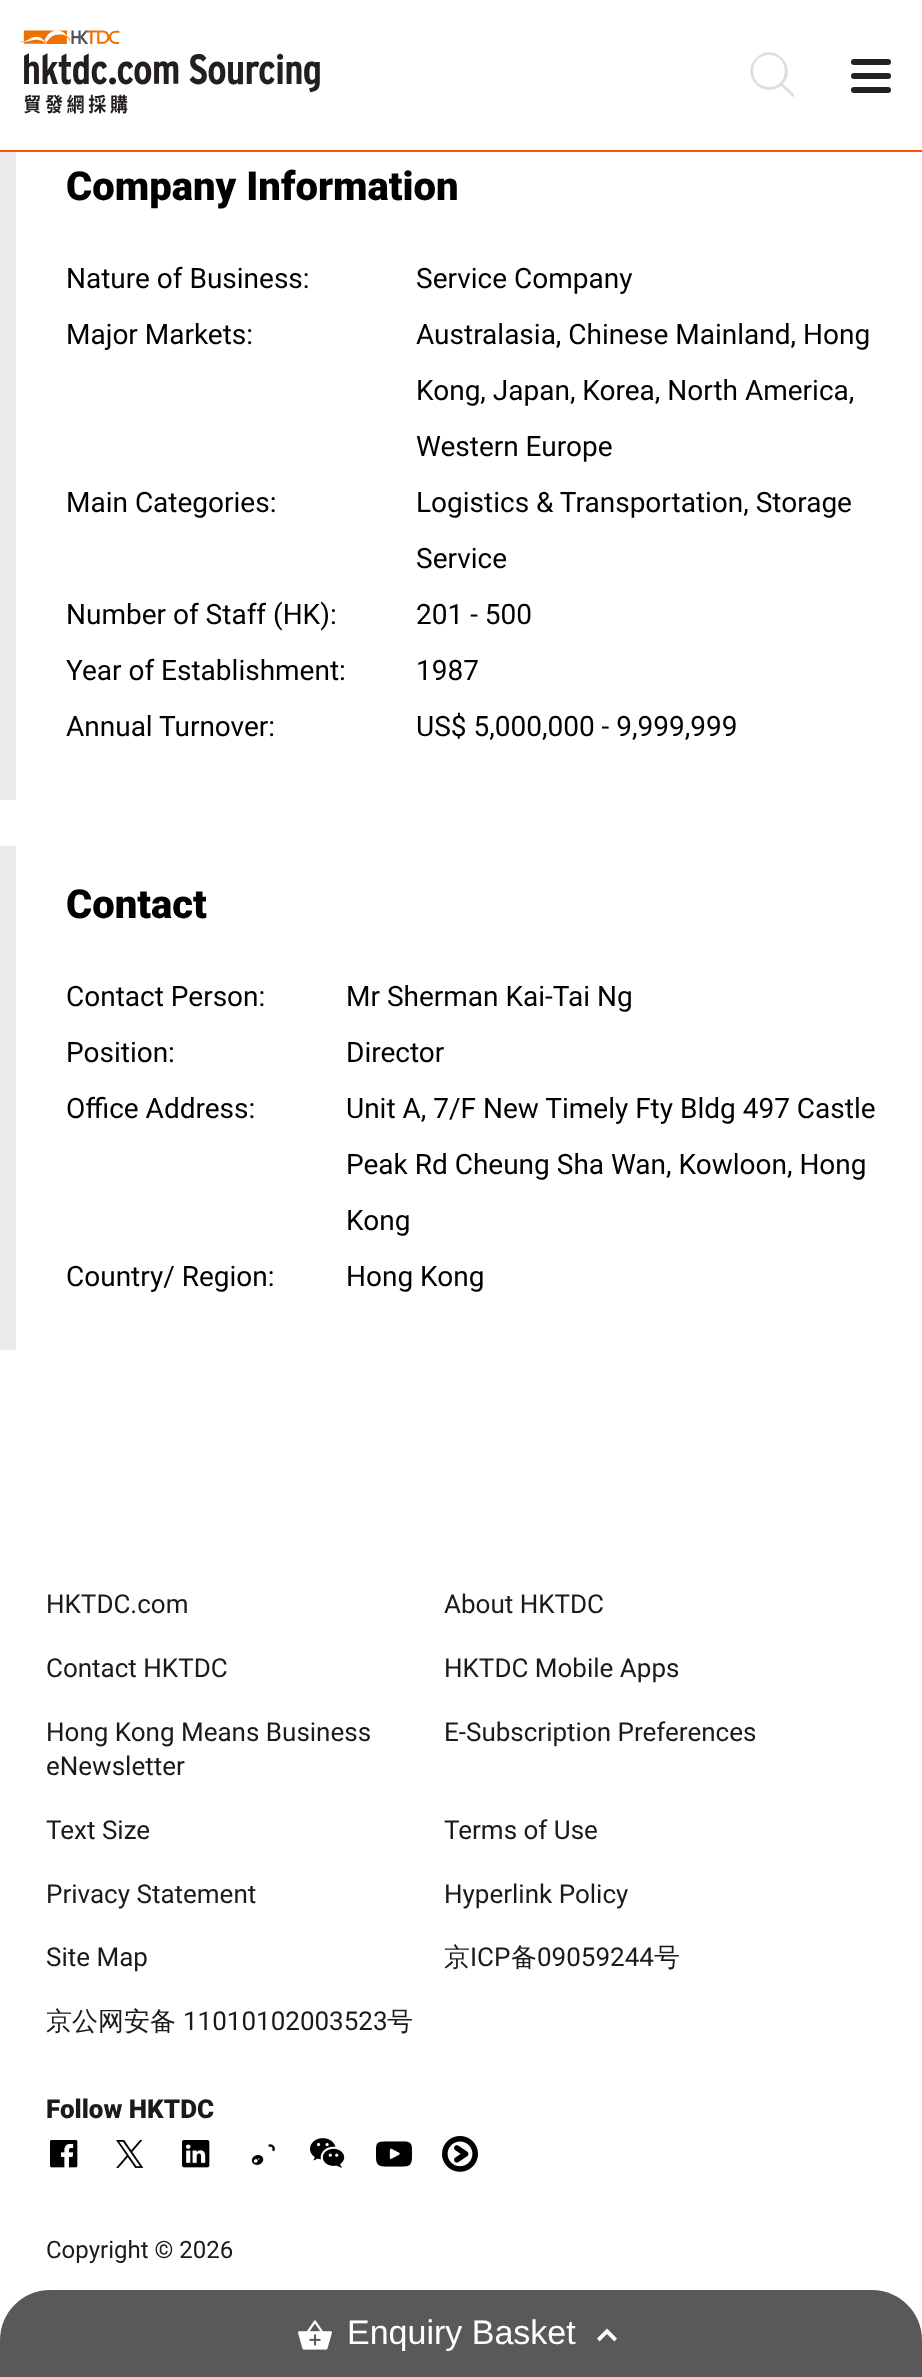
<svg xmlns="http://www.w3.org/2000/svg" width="922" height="2377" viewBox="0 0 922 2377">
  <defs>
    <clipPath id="clip1"><rect x="750" y="52" width="44" height="46"/></clipPath>
  </defs>
  <rect width="100%" height="100%" fill="rgb(255,255,255)"/>
  <rect x="0" y="150" width="922" height="2" fill="rgb(251,80,4)"/>
  <image x="20" y="30" width="300" height="84" href="pic1.png"/>
  <g clip-path="url(#clip1)">
    <path d="M795 95L783 84C799 66 773 41 756 58C739 75 763 100 781 86C783 87 793 98 794 97C795 97 796 96 795 95ZM769 87C748 87 748 55 769 55C790 55 790 87 769 87Z" fill="rgb(222,222,222)"/>
  </g>
  <rect x="851" y="59" width="40" height="6" rx="3" fill="rgb(34,34,34)"/>
  <rect x="851" y="73" width="40" height="6" rx="3" fill="rgb(34,34,34)"/>
  <rect x="851" y="87" width="40" height="6" rx="3" fill="rgb(34,34,34)"/>
  <rect x="0" y="152" width="16" height="648" fill="rgb(235,235,235)"/>
  <text x="66" y="200" font-family="Roboto" font-size="40" font-weight="900" fill="rgb(0,0,0)">Company Information</text>
  <g font-family="Roboto" font-size="28" fill="rgb(0,0,0)">
    <text x="66" y="288">Nature of Business:</text>
    <text x="416" y="288">Service Company</text>
    <text x="66" y="344">Major Markets:</text>
    <text x="416" y="344">Australasia, Chinese Mainland, Hong</text>
    <text x="416" y="400">Kong, Japan, Korea, North America,</text>
    <text x="416" y="456">Western Europe</text>
    <text x="66" y="512">Main Categories:</text>
    <text x="416" y="512">Logistics &amp; Transportation, Storage</text>
    <text x="416" y="568">Service</text>
    <text x="66" y="624">Number of Staff (HK):</text>
    <text x="416" y="624">201 - 500</text>
    <text x="66" y="680">Year of Establishment:</text>
    <text x="416" y="680">1987</text>
    <text x="66" y="736">Annual Turnover:</text>
    <text x="416" y="736">US$ 5,000,000 - 9,999,999</text>
  </g>
  <rect x="0" y="846" width="16" height="504" fill="rgb(235,235,235)"/>
  <text x="66" y="918" font-family="Roboto" font-size="40" font-weight="900" fill="rgb(0,0,0)">Contact</text>
  <g font-family="Roboto" font-size="28" fill="rgb(0,0,0)">
    <text x="66" y="1006">Contact Person:</text>
    <text x="346" y="1006">Mr Sherman Kai-Tai Ng</text>
    <text x="66" y="1062">Position:</text>
    <text x="346" y="1062">Director</text>
    <text x="66" y="1118">Office Address:</text>
    <text x="346" y="1118">Unit A, 7/F New Timely Fty Bldg 497 Castle</text>
    <text x="346" y="1174">Peak Rd Cheung Sha Wan, Kowloon, Hong</text>
    <text x="346" y="1230">Kong</text>
    <text x="66" y="1286">Country/ Region:</text>
    <text x="346" y="1286">Hong Kong</text>
  </g>
  <g font-family="Roboto" font-size="26" fill="rgb(26,26,26)">
    <text x="46" y="1613">HKTDC.com</text>
    <text x="444" y="1613">About HKTDC</text>
    <text x="46" y="1677">Contact HKTDC</text>
    <text x="444" y="1677">HKTDC Mobile Apps</text>
    <text>
      <tspan x="46" y="1741">Hong Kong Means Business</tspan>
      <tspan x="46" y="1775">eNewsletter</tspan>
    </text>
    <text x="444" y="1741">E-Subscription Preferences</text>
    <text x="46" y="1839">Text Size</text>
    <text x="444" y="1839">Terms of Use</text>
    <text x="46" y="1903">Privacy Statement</text>
    <text x="444" y="1903">Hyperlink Policy</text>
    <text x="46" y="1966">Site Map</text>
  </g>
  <text x="444" y="1966" font-family="WenQuanYi Zen Hei" font-size="26" font-weight="500" fill="rgb(26,26,26)">京</text>
  <text x="470" y="1966" font-family="Roboto" font-size="26" fill="rgb(26,26,26)">ICP</text>
  <text x="511" y="1966" font-family="WenQuanYi Zen Hei" font-size="26" font-weight="500" fill="rgb(26,26,26)">备</text>
  <text x="537" y="1966" font-family="Roboto" font-size="26" fill="rgb(26,26,26)">09059244</text>
  <g font-family="WenQuanYi Zen Hei" font-size="26" font-weight="500" fill="rgb(26,26,26)">
    <text x="654" y="1966">号</text>
    <text x="46" y="2030">京公网安备</text>
  </g>
  <text x="183" y="2030" font-family="Roboto" font-size="26" fill="rgb(26,26,26)">11010102003523</text>
  <text x="387" y="2030" font-family="WenQuanYi Zen Hei" font-size="26" font-weight="500" fill="rgb(26,26,26)">号</text>
  <text x="46" y="2118" font-family="Roboto" font-size="26" font-weight="900" fill="rgb(26,26,26)">Follow HKTDC</text>
  <image x="50" y="2140" width="28" height="28" href="pic2.png"/>
  <image x="116" y="2140" width="28" height="28" href="pic3.png"/>
  <image x="182" y="2140" width="28" height="28" href="pic4.png"/>
  <image x="251" y="2144" width="24" height="21" href="pic5.png"/>
  <image x="310" y="2138" width="35" height="30" href="pic6.png"/>
  <image x="376" y="2141" width="36" height="26" href="pic7.png"/>
  <image x="442" y="2136" width="36" height="36" href="pic8.png"/>
  <text x="46" y="2258" font-family="Roboto" font-size="24" fill="rgb(26,26,26)">Copyright © 2026</text>
  <path d="M50 2290H872C899.5 2290 922 2312.5 922 2340V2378H0V2340C0 2312.5 22.5 2290 50 2290Z" fill="rgb(89,89,91)"/>
  <image x="298" y="2320" width="34" height="30" href="pic9.png"/>
  <text x="347" y="2344" font-family="Liberation Sans" font-size="34" fill="rgb(255,255,255)">Enquiry Basket</text>
  <path d="M599.5 2341.5L607 2334L614.5 2341.5L617 2338.5L607 2328.5L597 2338.5Z" fill="rgb(255,255,255)"/>
</svg>
